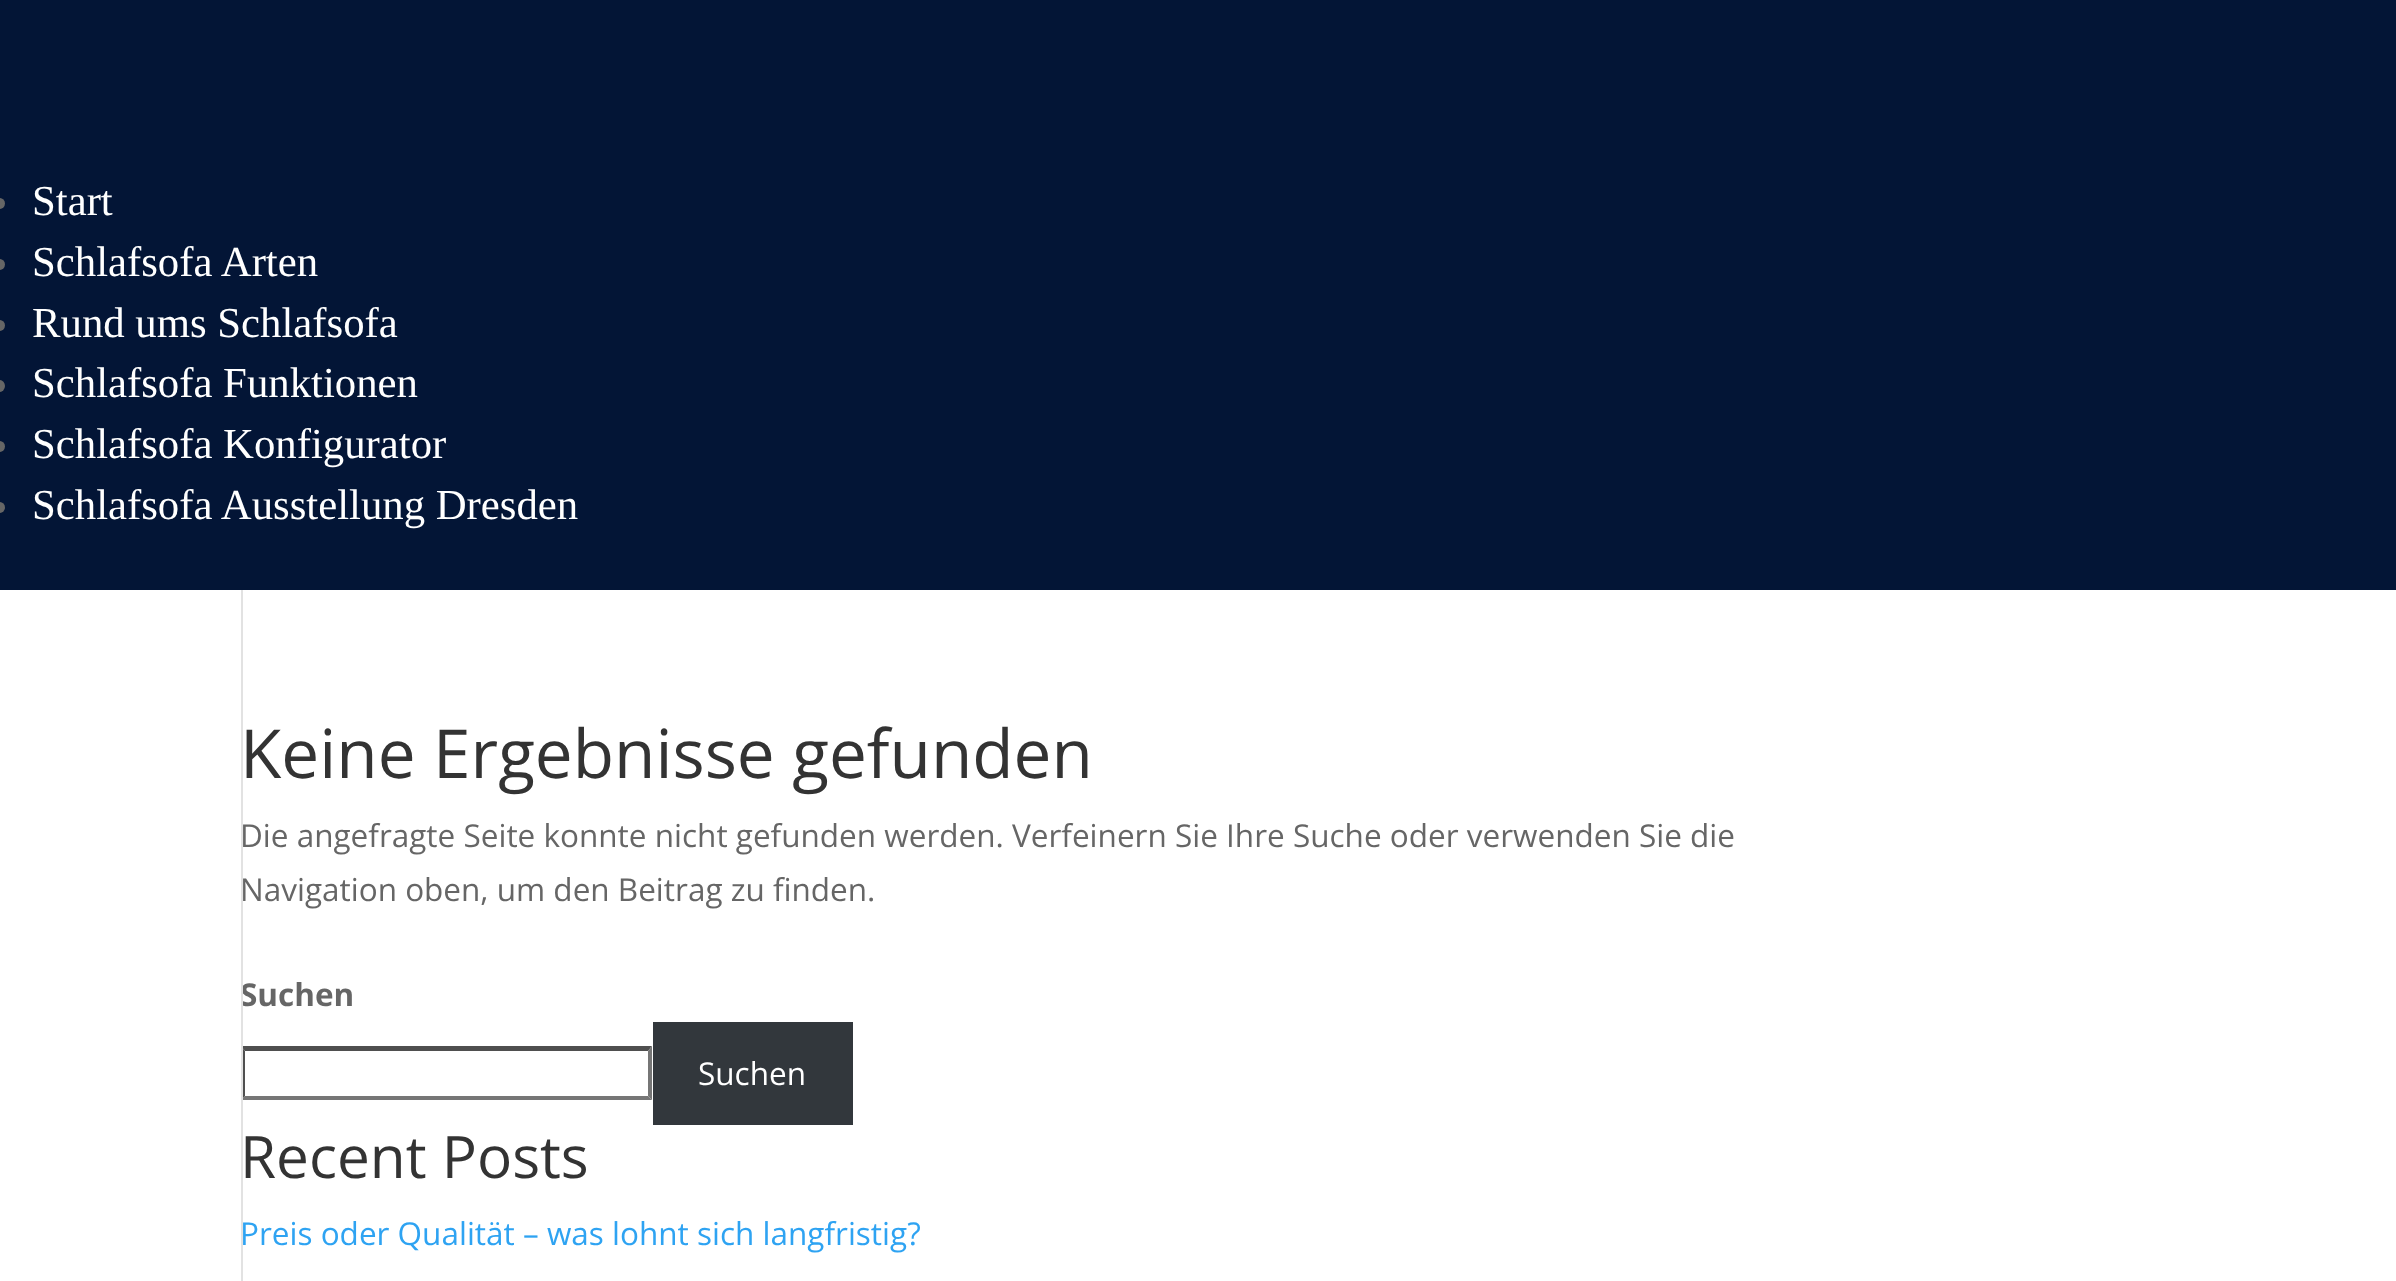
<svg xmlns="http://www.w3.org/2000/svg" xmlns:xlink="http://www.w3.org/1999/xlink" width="2396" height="1281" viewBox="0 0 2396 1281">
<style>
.cls-1{font:42.75px Liberation Serif;fill:#ffffff}
.cls-2{font:67.5px Open Sans;fill:#333333}
.cls-3{font:31.5px Open Sans;fill:#666666}
.cls-4{font:bold 31.5px Open Sans;fill:#666666}
.cls-5{font:31.5px Open Sans;fill:#ffffff}
.cls-6{font:58.5px Open Sans;fill:#333333}
.cls-7{font:31.5px Open Sans;fill:#2ea3f2}
</style>
<rect width="100%" height="100%" fill="#ffffff"/>
<rect fill="#031536" x="0" y="0" width="2396" height="590"/>
<circle fill="#666666" cx="-0.5" cy="203.5" r="5.5"/>
<circle fill="#666666" cx="-0.5" cy="264.5" r="5.5"/>
<circle fill="#666666" cx="-0.5" cy="325.5" r="5.5"/>
<rect fill="#666666" x="-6" y="380" width="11" height="12" rx="6"/>
<circle fill="#666666" cx="-0.5" cy="446.5" r="5.5"/>
<circle fill="#666666" cx="-0.5" cy="507.5" r="5.5"/>
<path fill="#4f4f4f" d="M241 1046H652L648 1051H245Z"/>
<path fill="#767676" d="M652 1046V1100L648 1096V1051Z"/>
<path fill="#767676" d="M652 1100H241L245 1096H648Z"/>
<path fill="#4f4f4f" d="M241 1100V1046L245 1051V1096Z"/>
<rect fill="#32373c" x="653" y="1022" width="200" height="103"/>
<text class="cls-1"><tspan x="32" y="215">Start</tspan><tspan x="32" y="276">Schlafsofa Arten</tspan><tspan x="32" y="337">Rund ums Schlafsofa</tspan><tspan x="32" y="397">Schlafsofa Funktionen</tspan><tspan x="32" y="458">Schlafsofa Konfigurator</tspan><tspan x="32" y="519">Schlafsofa Ausstellung Dresden</tspan></text>
<text class="cls-2" x="240" y="778">Keine Ergebnisse gefunden</text>
<text class="cls-3"><tspan x="240" y="847">Die angefragte Seite konnte nicht gefunden werden. Verfeinern Sie Ihre Suche oder verwenden Sie die</tspan><tspan x="240" y="901">Navigation oben, um den Beitrag zu finden.</tspan></text>
<text class="cls-4" x="240" y="1006">Suchen</text>
<text class="cls-5" x="698" y="1085">Suchen</text>
<text class="cls-6" x="240" y="1178">Recent Posts</text>
<text class="cls-7" x="240" y="1245">Preis oder Qualität – was lohnt sich langfristig?</text>
<rect fill="#e2e2e2" x="241" y="590" width="2" height="691"/>
</svg>
